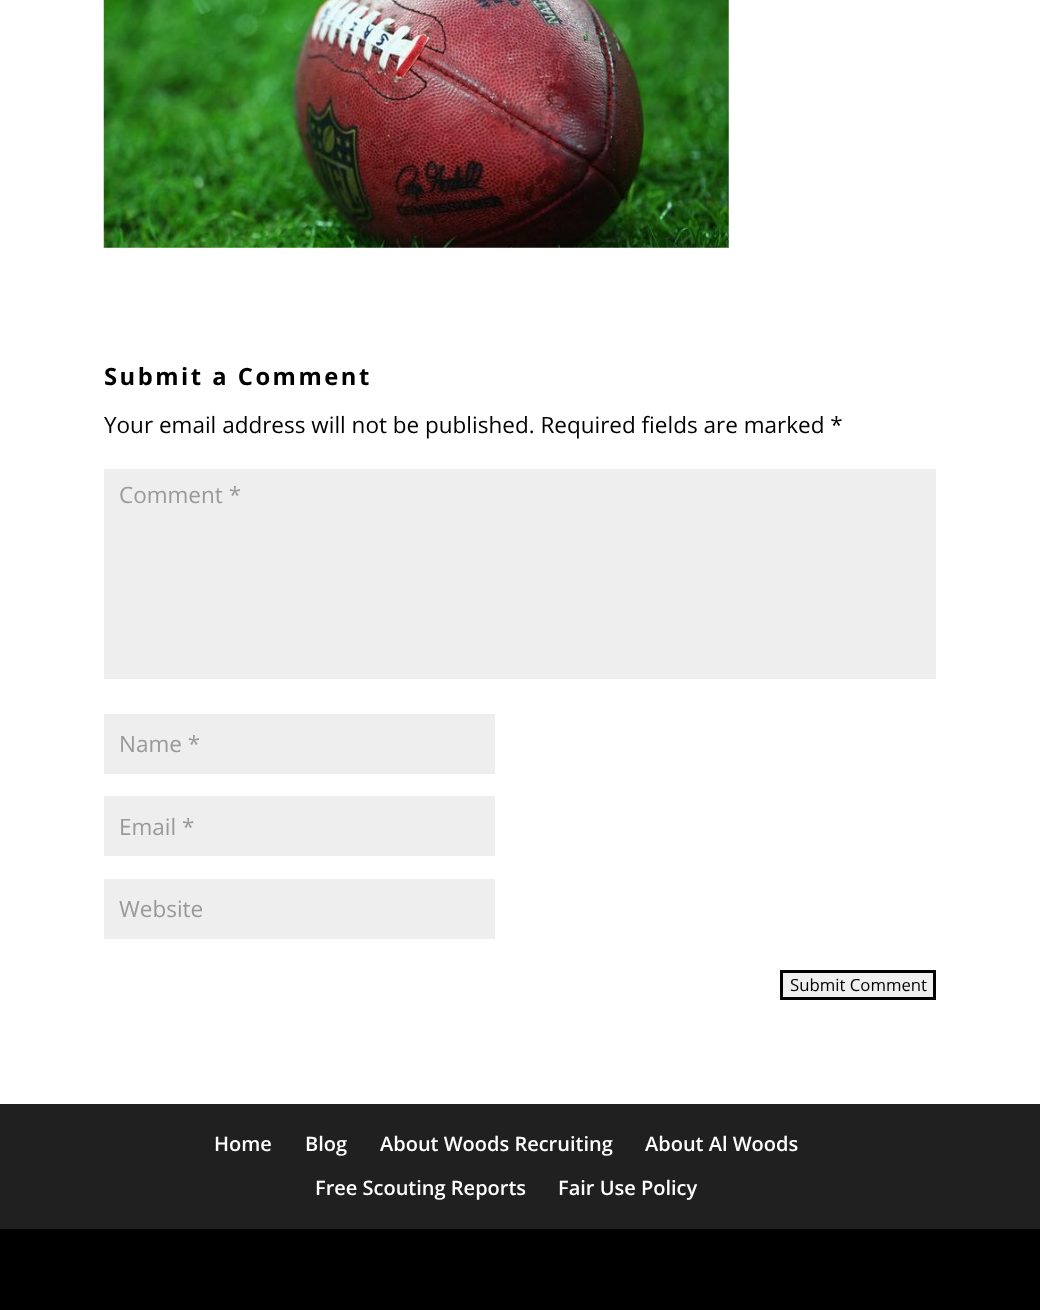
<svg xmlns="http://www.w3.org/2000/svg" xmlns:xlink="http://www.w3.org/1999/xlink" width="1040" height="1310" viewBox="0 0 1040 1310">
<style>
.cls-1{font:bold 23.75px Open Sans;letter-spacing:2.5px;fill:#000000}
.cls-2{font:22.5px Open Sans;fill:#000000}
.cls-3{font:22.5px Open Sans;fill:#999999}
.cls-4{font:16.75px Open Sans;fill:#000000}
.cls-5{font:600 20px Open Sans;fill:#ffffff}
</style>
<rect width="100%" height="100%" fill="#ffffff"/>
<image xlink:href="image0.png" x="103" y="0" width="626" height="248"/>
<rect fill="#eeeeee" x="104" y="469" width="832" height="210"/>
<rect fill="#eeeeee" x="104" y="714" width="391" height="60"/>
<rect fill="#eeeeee" x="104" y="796" width="391" height="60"/>
<rect fill="#eeeeee" x="104" y="879" width="391" height="60"/>
<rect fill="#efefef" stroke="#000000" stroke-width="3" x="781.5" y="971.5" width="153" height="27"/>
<rect fill="#202020" x="0" y="1104" width="1040" height="125"/>
<rect fill="#000000" x="0" y="1229" width="1040" height="81"/>
<text class="cls-1" x="104" y="385">Submit a Comment</text>
<text class="cls-2" x="104" y="433">Your email address will not be published. Required fields are marked *</text>
<text class="cls-3" x="119" y="503">Comment *</text>
<text class="cls-3" x="119" y="752">Name *</text>
<text class="cls-3" x="119" y="835">Email *</text>
<text class="cls-3" x="119" y="917">Website</text>
<text class="cls-4" x="790" y="991">Submit Comment</text>
<text class="cls-5" x="214" y="1151">Home</text>
<text class="cls-5" x="305" y="1151">Blog</text>
<text class="cls-5" x="380" y="1151">About Woods Recruiting</text>
<text class="cls-5" x="645" y="1151">About Al Woods</text>
<text class="cls-5" x="315" y="1195">Free Scouting Reports</text>
<text class="cls-5" x="558" y="1195">Fair Use Policy</text>
</svg>
